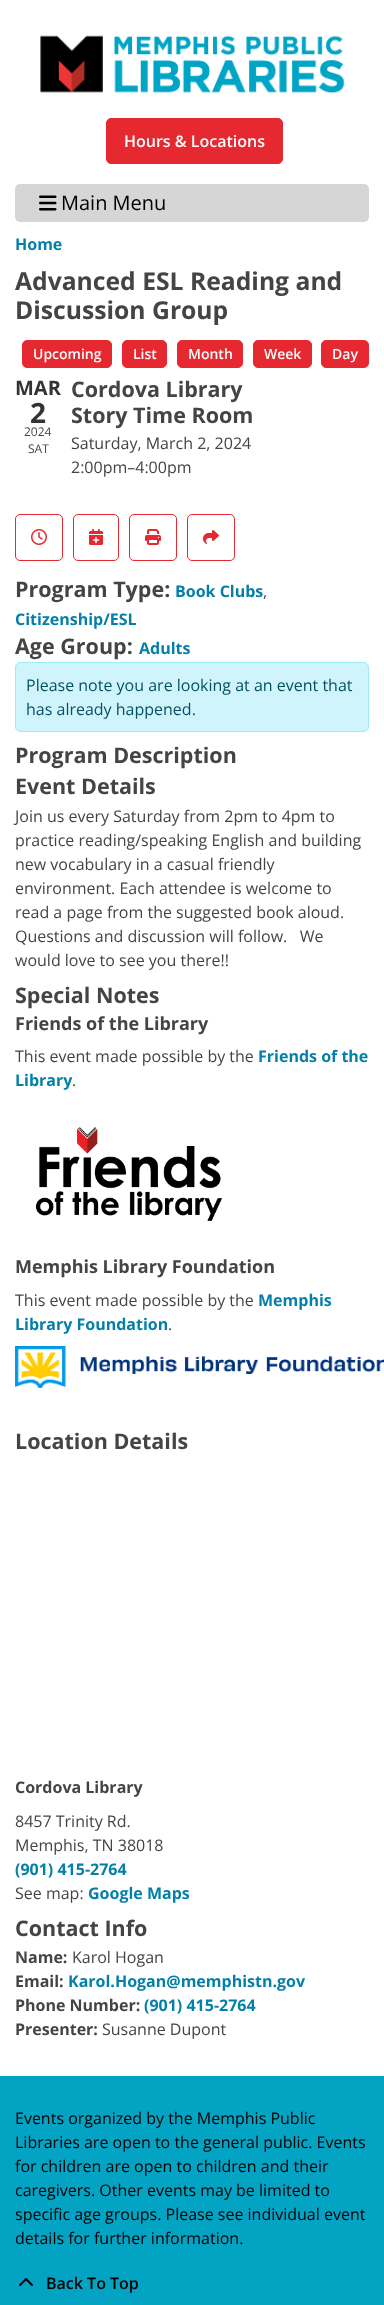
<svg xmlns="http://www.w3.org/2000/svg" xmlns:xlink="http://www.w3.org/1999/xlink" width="384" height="2305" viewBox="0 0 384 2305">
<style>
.cls-1{font:600 16px Open Sans;fill:#ffffff}
.cls-2{font:20px Open Sans;fill:#000000}
.cls-3{font:bold 16px Open Sans;fill:#037fa8}
.cls-4{font:bold 24.7px Open Sans;fill:#444444}
.cls-5{font:600 14px Open Sans;fill:#ffffff}
.cls-6{font:bold 20px Open Sans;fill:#333333}
.cls-7{font:bold 28px Open Sans;fill:#333333}
.cls-8{font:12px Open Sans;fill:#444444}
.cls-9{font:bold 21.5px Open Sans;fill:#444444}
.cls-10{font:16px Open Sans;fill:#444444}
.cls-11{font:16px Open Sans;fill:#055160}
.cls-12{font:bold 18px Open Sans;fill:#444444}
.cls-13{font:bold 16px Open Sans;fill:#444444}
.cls-14{font:16px Open Sans;fill:#000000}
.cls-15{font:600 16px Open Sans;fill:#000000}
</style>
<rect width="100%" height="100%" fill="#ffffff"/>
<image xlink:href="image0.png" x="40" y="35" width="305" height="59"/>
<rect fill="#e62831" stroke="#e62831" x="106.5" y="118.5" width="176" height="45" rx="4.5"/>
<rect fill="#d6d6d6" x="15" y="184" width="354" height="38" rx="5"/>
<image xlink:href="image1.png" x="39" y="195" width="18" height="16"/>
<rect fill="#e62831" stroke="#e62831" x="22.5" y="340.5" width="89" height="27" rx="4.5"/>
<rect fill="#e62831" stroke="#e62831" x="122.5" y="340.5" width="44" height="27" rx="4.5"/>
<rect fill="#e62831" stroke="#e62831" x="177.5" y="340.5" width="65" height="27" rx="4.5"/>
<rect fill="#e62831" stroke="#e62831" x="253.5" y="340.5" width="58" height="27" rx="4.5"/>
<rect fill="#e62831" stroke="#e62831" x="321.5" y="340.5" width="47" height="27" rx="4.5"/>
<rect fill="none" stroke="#e62831" x="15.5" y="514.5" width="47" height="46" rx="4.5"/>
<image xlink:href="image2.png" x="31" y="529" width="16" height="16"/>
<rect fill="none" stroke="#e62831" x="73.5" y="514.5" width="45" height="46" rx="4.5"/>
<image xlink:href="image3.png" x="89" y="529" width="14" height="16"/>
<rect fill="none" stroke="#e62831" x="129.5" y="514.5" width="47" height="46" rx="4.5"/>
<image xlink:href="image4.png" x="145" y="529" width="16" height="16"/>
<rect fill="none" stroke="#e62831" x="187.5" y="514.5" width="47" height="46" rx="4.5"/>
<image xlink:href="image5.png" x="203" y="530" width="16" height="14"/>
<rect fill="#cff4fc" stroke="#9eeaf9" x="15.5" y="662.5" width="353" height="69" rx="4.5"/>
<image xlink:href="image6.png" x="36" y="1127" width="186" height="94"/>
<image xlink:href="image7.png" x="15" y="1346" width="369" height="42"/>
<rect fill="#03a3c4" x="0" y="2076" width="384" height="229"/>
<image xlink:href="image8.png" x="19" y="2278" width="14" height="8"/>
<text class="cls-1" x="124" y="147">Hours &amp; Locations</text>
<text class="cls-2" x="61" y="210">Main Menu</text>
<text class="cls-3" x="15" y="250">Home</text>
<text class="cls-4"><tspan x="15" y="290">Advanced ESL Reading and</tspan><tspan x="15" y="319">Discussion Group</tspan></text>
<text class="cls-5" x="33" y="359">Upcoming</text>
<text class="cls-5" x="133" y="359">List</text>
<text class="cls-5" x="188" y="359">Month</text>
<text class="cls-5" x="264" y="359">Week</text>
<text class="cls-5" x="332" y="359">Day</text>
<text class="cls-6" x="15" y="395">MAR</text>
<text class="cls-7" x="30" y="423">2</text>
<text class="cls-8" x="24" y="436">2024</text>
<text class="cls-8" x="28" y="453">SAT</text>
<text class="cls-9"><tspan x="71" y="397">Cordova Library</tspan><tspan x="71" y="423">Story Time Room</tspan></text>
<text class="cls-10"><tspan x="71" y="449">Saturday, March 2, 2024</tspan><tspan x="71" y="473">2:00pm–4:00pm</tspan></text>
<text class="cls-9" x="15" y="597">Program Type:</text>
<text class="cls-3" x="175" y="597">Book Clubs</text>
<text class="cls-10" x="263" y="597">,</text>
<text class="cls-3" x="15" y="625">Citizenship/ESL</text>
<text class="cls-9" x="15" y="654">Age Group:</text>
<text class="cls-3" x="139" y="654">Adults</text>
<text class="cls-11"><tspan x="26" y="691">Please note you are looking at an event that</tspan><tspan x="26" y="715">has already happened.</tspan></text>
<text class="cls-9"><tspan x="15" y="763">Program Description</tspan><tspan x="15" y="794">Event Details</tspan></text>
<text class="cls-10" xml:space="preserve"><tspan x="15" y="822">Join us every Saturday from 2pm to 4pm to</tspan><tspan x="15" y="846">practice reading/speaking English and building</tspan><tspan x="15" y="870">new vocabulary in a casual friendly</tspan><tspan x="15" y="894">environment. Each attendee is welcome to</tspan><tspan x="15" y="918">read a page from the suggested book aloud.</tspan><tspan x="15" y="942">Questions and discussion will follow.   We</tspan><tspan x="15" y="966">would love to see you there!!</tspan></text>
<text class="cls-9" x="15" y="1003">Special Notes</text>
<text class="cls-12" x="15" y="1030">Friends of the Library</text>
<text class="cls-10" x="15" y="1062">This event made possible by the</text>
<text class="cls-3" x="258" y="1062">Friends of the</text>
<text class="cls-3" x="15" y="1086">Library</text>
<text class="cls-10" x="72" y="1086">.</text>
<text class="cls-12" x="15" y="1273">Memphis Library Foundation</text>
<text class="cls-10" x="15" y="1306">This event made possible by the</text>
<text class="cls-3" x="258" y="1306">Memphis</text>
<text class="cls-3" x="15" y="1330">Library Foundation</text>
<text class="cls-10" x="168" y="1330">.</text>
<text class="cls-9" x="15" y="1449">Location Details</text>
<text class="cls-13" x="15" y="1793">Cordova Library</text>
<text class="cls-10"><tspan x="15" y="1827">8457 Trinity Rd.</tspan><tspan x="15" y="1851">Memphis, TN 38018</tspan></text>
<text class="cls-3" x="15" y="1875">(901) 415-2764</text>
<text class="cls-10" x="15" y="1899">See map:</text>
<text class="cls-3" x="88" y="1899">Google Maps</text>
<text class="cls-9" x="15" y="1936">Contact Info</text>
<text class="cls-13" x="15" y="1963">Name:</text>
<text class="cls-10" x="72" y="1963">Karol Hogan</text>
<text class="cls-13" x="15" y="1987">Email:</text>
<text class="cls-3" x="68" y="1987">Karol.Hogan@memphistn.gov</text>
<text class="cls-13" x="15" y="2011">Phone Number:</text>
<text class="cls-3" x="144" y="2011">(901) 415-2764</text>
<text class="cls-13" x="15" y="2035">Presenter:</text>
<text class="cls-10" x="102" y="2035">Susanne Dupont</text>
<text class="cls-14"><tspan x="15" y="2124">Events organized by the Memphis Public</tspan><tspan x="15" y="2148">Libraries are open to the general public. Events</tspan><tspan x="15" y="2172">for children are open to children and their</tspan><tspan x="15" y="2196">caregivers. Other events may be limited to</tspan><tspan x="15" y="2220">specific age groups. Please see individual event</tspan><tspan x="15" y="2244">details for further information.</tspan></text>
<text class="cls-15" x="46" y="2289">Back To Top</text>
</svg>
